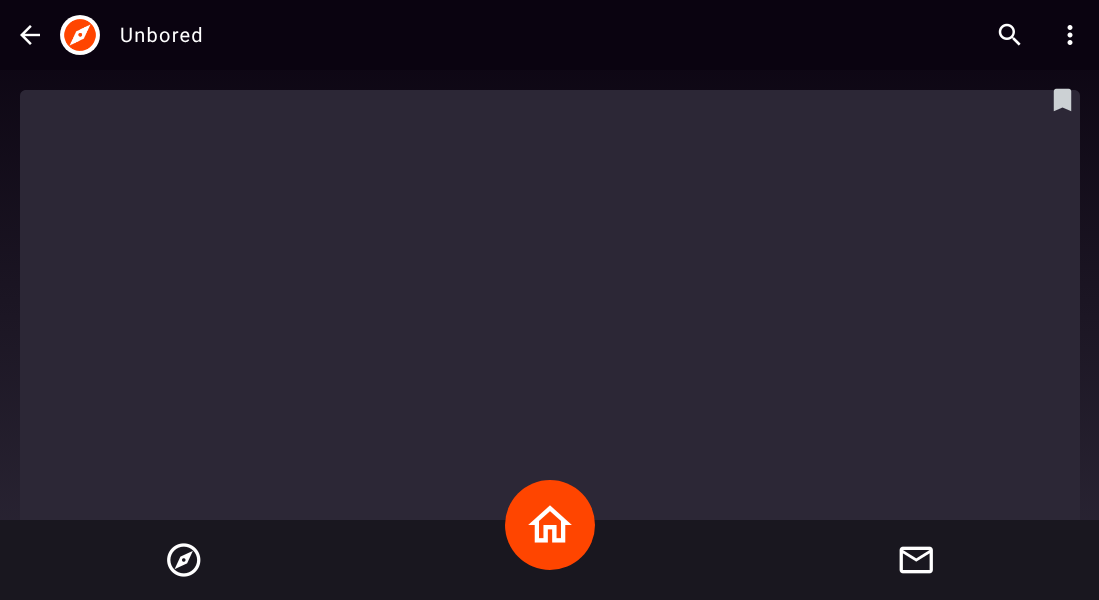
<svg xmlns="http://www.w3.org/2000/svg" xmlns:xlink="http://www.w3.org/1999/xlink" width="1099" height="600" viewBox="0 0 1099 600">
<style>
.cls-1{font:20px Roboto;letter-spacing:1.25px;fill:#ffffff}
</style>
<defs>
<linearGradient id="g1" gradientUnits="userSpaceOnUse" x1="550" y1="0" x2="550" y2="600"><stop offset="0" stop-color="#0a0310"/><stop offset="1" stop-color="#2c2736"/></linearGradient>
</defs>
<rect width="100%" height="100%" fill="#ffffff"/>
<rect fill="url(#g1)" x="0" y="70" width="1099" height="450"/>
<rect fill="#0a0310" x="0" y="0" width="1099" height="70"/>
<image xlink:href="image0.png" x="20" y="25" width="20" height="20"/>
<image xlink:href="image1.png" x="60" y="15" width="40" height="40"/>
<image xlink:href="image2.png" x="998" y="23" width="23" height="23"/>
<image xlink:href="image3.png" x="1067" y="25" width="6" height="20"/>
<path fill="#2c2736" d="M26 90H1074C1077.5 90 1080 92.5 1080 96V520H20V96C20 92.5 22.5 90 26 90Z"/>
<image xlink:href="image4.png" x="1053" y="88" width="19" height="24"/>
<rect fill="#19171f" x="0" y="520" width="1099" height="80"/>
<image xlink:href="image5.png" x="167" y="543" width="34" height="34"/>
<circle fill="#ff4500" cx="550" cy="525" r="45"/>
<image xlink:href="image6.png" x="528" y="505" width="44" height="38"/>
<image xlink:href="image7.png" x="899" y="546" width="34" height="28"/>
<text class="cls-1" x="120" y="42">Unbored</text>
</svg>
